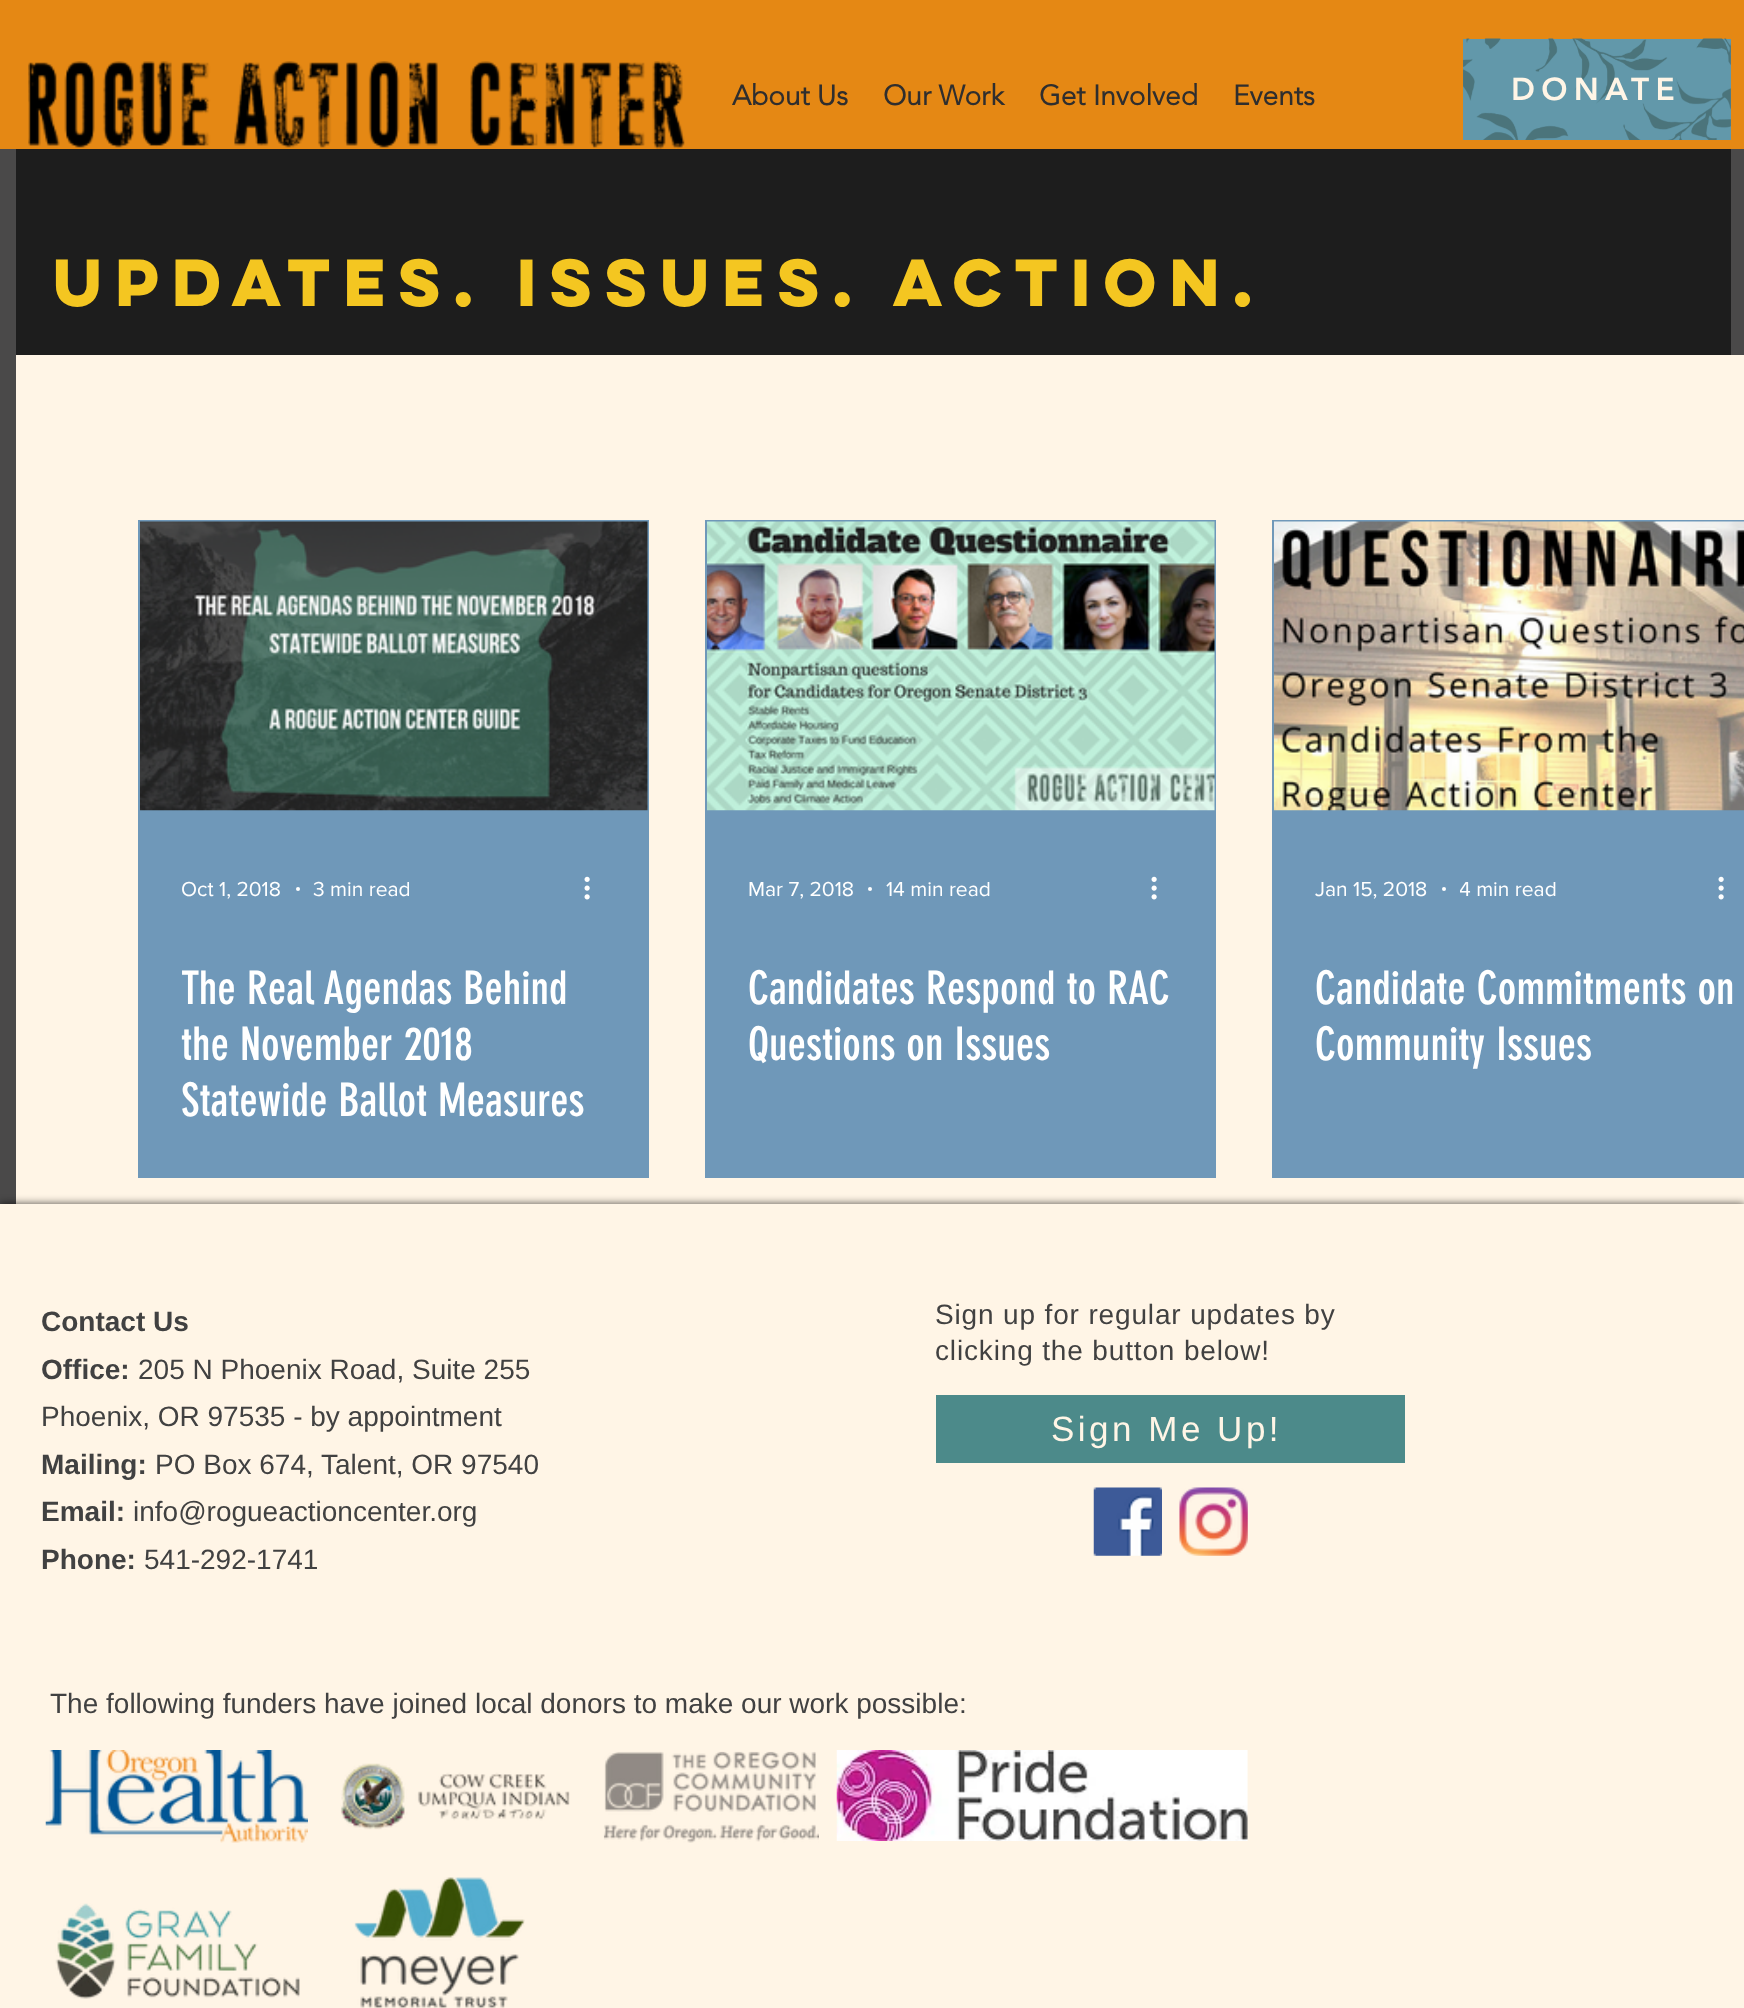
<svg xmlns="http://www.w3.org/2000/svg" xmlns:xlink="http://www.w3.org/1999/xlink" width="1744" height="2008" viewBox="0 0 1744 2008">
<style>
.cls-1{font:bold 28px 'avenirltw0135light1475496';fill:#2f2e2e}
.cls-2{font:900 31.5px 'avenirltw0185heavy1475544';letter-spacing:6.25px;fill:#fff5e6}
.cls-3{font:bold 59.5px 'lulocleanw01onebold';fill:#f4c621}
.cls-4{font:21px 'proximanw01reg';fill:#ffffff}
.cls-5{font:45.5px 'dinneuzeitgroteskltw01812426';fill:#ffffff}
.cls-6{font:bold 28px Liberation Sans;fill:#414141}
.cls-7{font:28px Liberation Sans;fill:#414141}
.cls-8{font:28px Liberation Sans;letter-spacing:0.85px;fill:#414141}
.cls-9{font:35px Liberation Sans;letter-spacing:3.5px;fill:#fff5e6}
</style>
<defs>
<clipPath id="clip1"><rect x="1460" y="877" width="98" height="23"/></clipPath>
</defs>
<rect width="100%" height="100%" fill="#4a4949"/>
<rect fill="#e58814" x="0" y="0" width="1744" height="149"/>
<image xlink:href="image0.png" x="28" y="61" width="657" height="88"/>
<rect fill="#6298aa" x="1463" y="39" width="268" height="101"/>
<image xlink:href="image1.png" x="1463" y="38" width="268" height="102"/>
<rect fill="#1d1d1d" x="16" y="149" width="1715" height="206"/>
<rect fill="#fff5e6" x="16" y="355" width="1728" height="849"/>
<rect fill="#6f98b9" x="138" y="520" width="511" height="658"/>
<image xlink:href="image2.png" x="140" y="521" width="508" height="290"/>
<circle fill="#ffffff" cx="298" cy="889" r="2"/>
<image xlink:href="image3.png" x="584" y="876" width="6" height="24"/>
<rect fill="#6f98b9" x="705" y="520" width="511" height="658"/>
<image xlink:href="image4.png" x="707" y="521" width="508" height="290"/>
<circle fill="#ffffff" cx="870" cy="889" r="2"/>
<image xlink:href="image3.png" x="1151" y="876" width="6" height="24"/>
<rect fill="#6f98b9" x="1272" y="520" width="472" height="658"/>
<image xlink:href="image5.png" x="1274" y="521" width="470" height="290"/>
<circle fill="#ffffff" cx="1444" cy="889" r="2"/>
<image xlink:href="image3.png" x="1718" y="876" width="6" height="24"/>
<rect fill="#000000" fill-opacity="0.7" filter="blur(4.5px)" x="0" y="1204" width="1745" height="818"/>
<rect fill="#fff5e6" x="0" y="1204" width="1744" height="804"/>
<rect fill="#4c8a8a" x="936" y="1395" width="469" height="68"/>
<image xlink:href="image6.png" x="1093" y="1487" width="69" height="69"/>
<image xlink:href="image7.png" x="1179" y="1487" width="69" height="69"/>
<image xlink:href="image8.png" x="45" y="1750" width="263" height="93"/>
<image xlink:href="image9.png" x="340" y="1763" width="230" height="67"/>
<image xlink:href="image10.png" x="603" y="1751" width="216" height="92"/>
<image xlink:href="image11.png" x="836" y="1750" width="412" height="91"/>
<image xlink:href="image12.png" x="55" y="1903" width="245" height="96"/>
<image xlink:href="image13.png" x="354" y="1877" width="171" height="131"/>
<text class="cls-1" x="732" y="105">About Us</text>
<text class="cls-1" x="883" y="105">Our Work</text>
<text class="cls-1" x="1039" y="105">Get Involved</text>
<text class="cls-1" x="1233" y="105">Events</text>
<text class="cls-2" x="1511" y="100">DONATE</text>
<text class="cls-3" x="53" y="306">Updates. issues. action.</text>
<text class="cls-4" x="181" y="896">Oct 1, 2018</text>
<text class="cls-4" x="313" y="896">3 min read</text>
<text class="cls-5"><tspan x="181" y="1004">The Real Agendas Behind</tspan><tspan x="181" y="1060">the November 2018</tspan><tspan x="181" y="1116">Statewide Ballot Measures</tspan></text>
<text class="cls-4" x="748" y="896">Mar 7, 2018</text>
<text class="cls-4" x="886" y="896">14 min read</text>
<text class="cls-5"><tspan x="748" y="1004">Candidates Respond to RAC</tspan><tspan x="748" y="1060">Questions on Issues</tspan></text>
<text class="cls-4" x="1315" y="896">Jan 15, 2018</text>
<g clip-path="url(#clip1)">
<text class="cls-4" x="1459" y="896">4 min read</text>
</g>
<text class="cls-5"><tspan x="1315" y="1004">Candidate Commitments on</tspan><tspan x="1315" y="1060">Community Issues</tspan></text>
<text class="cls-6"><tspan x="41" y="1331">Contact Us</tspan><tspan x="41" y="1379">Office:</tspan></text>
<text class="cls-7" x="138" y="1379">205 N Phoenix Road, Suite 255</text>
<text class="cls-7" x="41" y="1426">Phoenix, OR 97535 - by appointment</text>
<text class="cls-6" x="41" y="1474">Mailing:</text>
<text class="cls-7" x="155" y="1474">PO Box 674, Talent, OR 97540</text>
<text class="cls-6" x="41" y="1521">Email:</text>
<text class="cls-7" x="133" y="1521">info@rogueactioncenter.org</text>
<text class="cls-6" x="41" y="1569">Phone:</text>
<text class="cls-7" x="144" y="1569">541-292-1741</text>
<text class="cls-8"><tspan x="935" y="1324">Sign up for regular updates by</tspan><tspan x="935" y="1360">clicking the button below!</tspan></text>
<text class="cls-9" x="1051" y="1441">Sign Me Up!</text>
<text class="cls-7" x="50" y="1713">The following funders have joined local donors to make our work possible:</text>
</svg>
